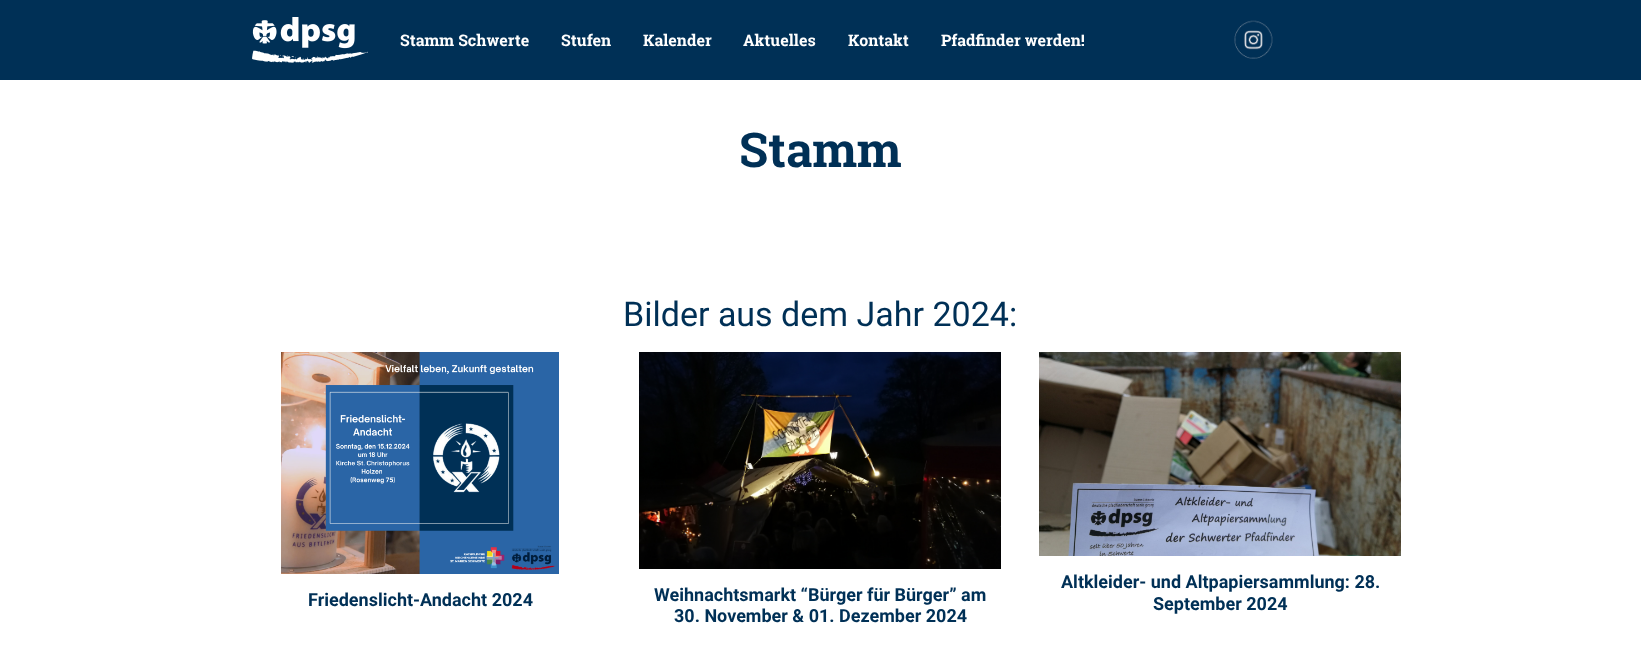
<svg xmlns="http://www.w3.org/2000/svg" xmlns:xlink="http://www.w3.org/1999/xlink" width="1641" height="664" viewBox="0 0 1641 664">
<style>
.cls-1{font:bold 16px Roboto Slab;fill:#fefefe}
.cls-2{font:bold 48px Roboto Slab;fill:#003056}
.cls-3{font:34px Roboto;fill:#003056}
.cls-4{font:bold 18px Roboto;fill:#003056}
</style>
<rect width="100%" height="100%" fill="#ffffff"/>
<rect fill="#003056" x="0" y="0" width="1641" height="80"/>
<image xlink:href="image0.png" x="252" y="17" width="116" height="46"/>
<image xlink:href="image1.png" x="1234" y="20" width="39" height="39"/>
<image xlink:href="image2.png" x="281" y="352" width="278" height="222"/>
<image xlink:href="image3.png" x="639" y="352" width="362" height="217"/>
<image xlink:href="image4.png" x="1039" y="352" width="362" height="204"/>
<text class="cls-1" x="400" y="46">Stamm Schwerte</text>
<text class="cls-1" x="561" y="46">Stufen</text>
<text class="cls-1" x="643" y="46">Kalender</text>
<text class="cls-1" x="743" y="46">Aktuelles</text>
<text class="cls-1" x="848" y="46">Kontakt</text>
<text class="cls-1" x="941" y="46">Pfadfinder werden!</text>
<text class="cls-2" x="739" y="167">Stamm</text>
<text class="cls-3" x="623" y="326">Bilder aus dem Jahr 2024:</text>
<text class="cls-4" x="308" y="606">Friedenslicht-Andacht 2024</text>
<text class="cls-4" x="654" y="601">Weihnachtsmarkt “Bürger für Bürger” am</text>
<text class="cls-4" x="674" y="622">30. November &amp; 01. Dezember 2024</text>
<text class="cls-4" x="1061" y="588">Altkleider- und Altpapiersammlung: 28.</text>
<text class="cls-4" x="1153" y="610">September 2024</text>
</svg>
